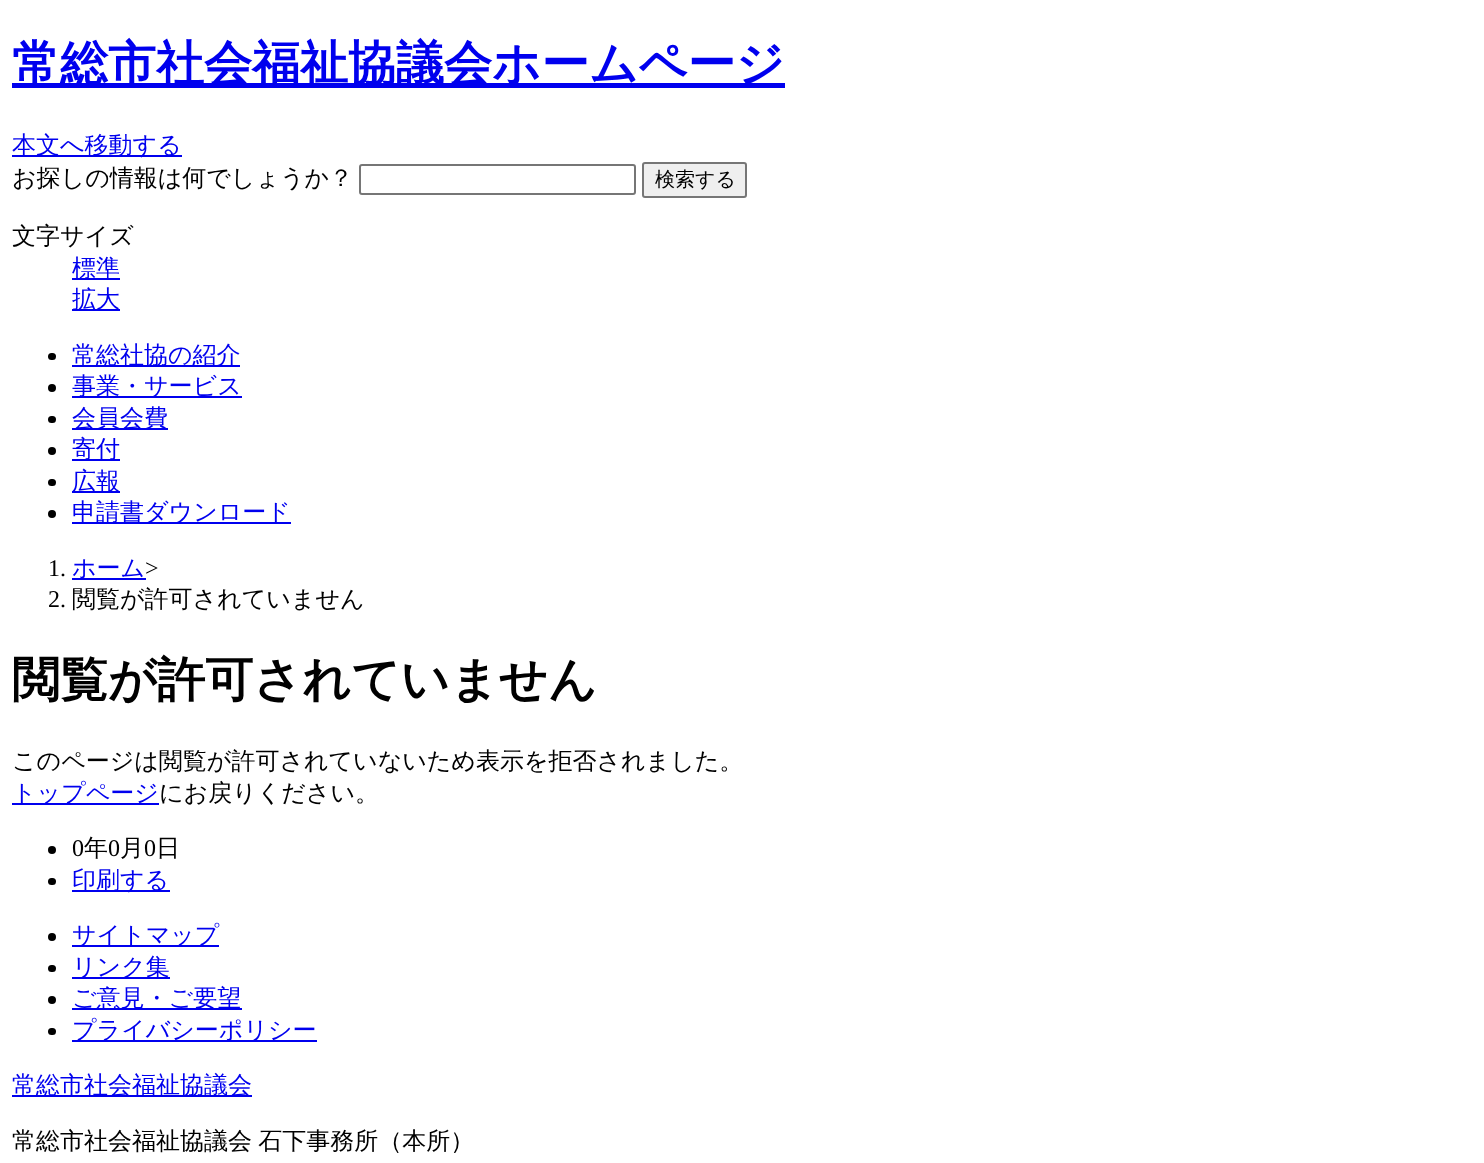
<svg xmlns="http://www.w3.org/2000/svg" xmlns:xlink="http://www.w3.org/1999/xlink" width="1484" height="1163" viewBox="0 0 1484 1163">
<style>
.cls-1{font:bold 48px WenQuanYi Zen Hei;fill:#0000ee}
.cls-2{font:500 24px WenQuanYi Zen Hei;fill:#0000ee}
.cls-3{font:500 24px WenQuanYi Zen Hei;fill:#000000}
.cls-4{font:500 20px WenQuanYi Zen Hei;fill:#000000}
.cls-5{font:24px Liberation Serif;fill:#000000}
.cls-6{font:bold 48px WenQuanYi Zen Hei;fill:#000000}
</style>
<rect width="100%" height="100%" fill="#ffffff"/>
<rect fill="#0000ee" x="12" y="83" width="773" height="5"/>
<rect fill="#0000ee" x="12" y="155" width="170" height="2"/>
<rect fill="none" stroke="#767676" stroke-width="2" x="360" y="165" width="275" height="29" rx="2"/>
<rect fill="#efefef" stroke="#767676" stroke-width="2" x="643" y="163" width="103" height="34" rx="2"/>
<rect fill="#0000ee" x="72" y="278" width="48" height="2"/>
<rect fill="#0000ee" x="72" y="309" width="48" height="2"/>
<rect fill="#000000" x="48" y="353" width="8" height="7" rx="3.5"/>
<rect fill="#0000ee" x="72" y="365" width="168" height="2"/>
<circle fill="#000000" cx="52" cy="388" r="4"/>
<rect fill="#0000ee" x="72" y="396" width="170" height="2"/>
<rect fill="#000000" x="48" y="416" width="8" height="7" rx="3.5"/>
<rect fill="#0000ee" x="72" y="428" width="96" height="2"/>
<circle fill="#000000" cx="52" cy="451" r="4"/>
<rect fill="#0000ee" x="72" y="459" width="48" height="2"/>
<rect fill="#000000" x="48" y="479" width="8" height="7" rx="3.5"/>
<rect fill="#0000ee" x="72" y="491" width="48" height="2"/>
<circle fill="#000000" cx="52" cy="514" r="4"/>
<rect fill="#0000ee" x="72" y="522" width="219" height="2"/>
<rect fill="#0000ee" x="72" y="578" width="74" height="2"/>
<rect fill="#0000ee" x="12" y="803" width="147" height="2"/>
<circle fill="#000000" cx="52" cy="850" r="4"/>
<rect fill="#000000" x="48" y="878" width="8" height="7" rx="3.5"/>
<rect fill="#0000ee" x="72" y="890" width="98" height="2"/>
<circle fill="#000000" cx="52" cy="937" r="4"/>
<rect fill="#0000ee" x="72" y="945" width="147" height="2"/>
<rect fill="#000000" x="48" y="965" width="8" height="7" rx="3.5"/>
<rect fill="#0000ee" x="72" y="977" width="98" height="2"/>
<circle fill="#000000" cx="52" cy="1000" r="4"/>
<rect fill="#0000ee" x="72" y="1008" width="170" height="2"/>
<rect fill="#000000" x="48" y="1028" width="8" height="7" rx="3.5"/>
<rect fill="#0000ee" x="72" y="1040" width="245" height="2"/>
<rect fill="#0000ee" x="12" y="1095" width="240" height="2"/>
<text class="cls-1" x="12" y="80">常総市社会福祉協議会ホームページ</text>
<text class="cls-2" x="12" y="153">本文へ移動する</text>
<text class="cls-3" x="12" y="186">お探しの情報は何でしょうか？</text>
<text class="cls-4" x="655" y="186">検索する</text>
<text class="cls-3" x="12" y="244">文字サイズ</text>
<text class="cls-2"><tspan x="72" y="276">標準</tspan><tspan x="72" y="307">拡大</tspan></text>
<text class="cls-2"><tspan x="72" y="363">常総社協の紹介</tspan><tspan x="72" y="394">事業・サービス</tspan><tspan x="72" y="426">会員会費</tspan><tspan x="72" y="457">寄付</tspan><tspan x="72" y="489">広報</tspan><tspan x="72" y="520">申請書ダウンロード</tspan></text>
<text class="cls-5" x="48" y="576">1.</text>
<text class="cls-2" x="72" y="576">ホーム</text>
<text class="cls-5" x="145" y="576">&gt;</text>
<text class="cls-5" x="48" y="607">2.</text>
<text class="cls-3" x="72" y="607">閲覧が許可されていません</text>
<text class="cls-6" x="12" y="696">閲覧が許可されていません</text>
<text class="cls-3" x="12" y="769">このページは閲覧が許可されていないため表示を拒否されました。</text>
<text class="cls-2" x="12" y="801">トップページ</text>
<text class="cls-3" x="159" y="801">にお戻りください。</text>
<text class="cls-5" x="72" y="856">0</text>
<text class="cls-3" x="84" y="856">年</text>
<text class="cls-5" x="108" y="856">0</text>
<text class="cls-3" x="120" y="856">月</text>
<text class="cls-5" x="144" y="856">0</text>
<text class="cls-3" x="156" y="856">日</text>
<text class="cls-2" x="72" y="888">印刷する</text>
<text class="cls-2"><tspan x="72" y="943">サイトマップ</tspan><tspan x="72" y="975">リンク集</tspan><tspan x="72" y="1006">ご意見・ご要望</tspan><tspan x="72" y="1038">プライバシーポリシー</tspan></text>
<text class="cls-2" x="12" y="1093">常総市社会福祉協議会</text>
<text class="cls-3" x="12" y="1149" word-spacing="-1">常総市社会福祉協議会 石下事務所（本所）</text>
</svg>
